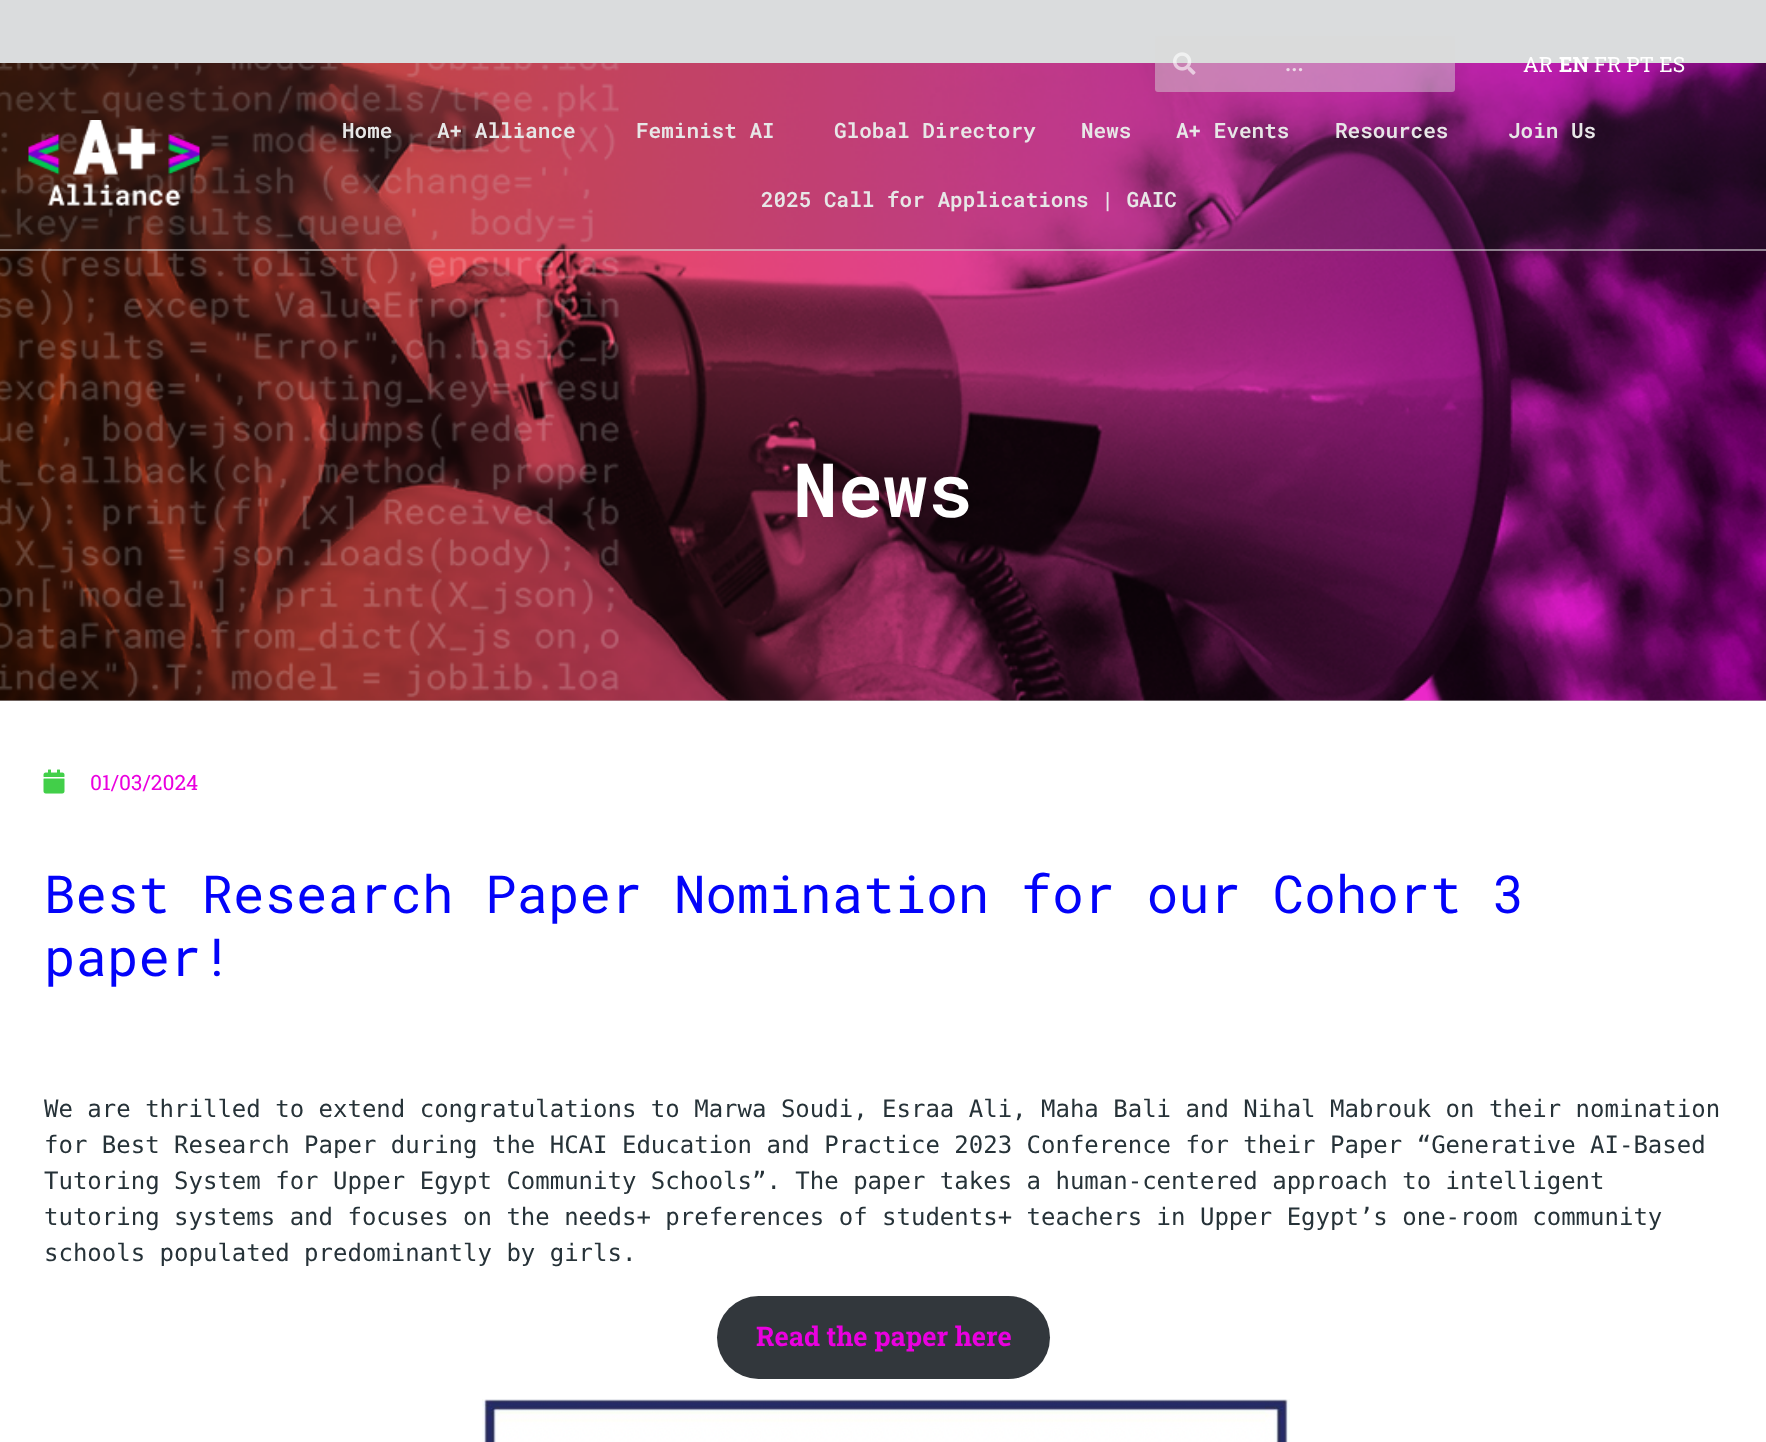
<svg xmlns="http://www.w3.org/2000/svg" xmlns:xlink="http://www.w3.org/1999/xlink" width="1766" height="1442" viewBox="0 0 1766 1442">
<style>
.cls-1{font:600 22px Roboto;fill:#eddae8}
.cls-2{font:21px Roboto Slab;fill:#ffffff}
.cls-3{font:bold 21px Roboto Slab;fill:#ffffff}
.cls-4{font:600 21px Roboto Mono;fill:#e7e7e7}
.cls-5{font:600 75px Roboto Mono;fill:#ffffff}
.cls-6{font:21px Roboto Slab;fill:#ea00df}
.cls-7{font:52.5px Roboto Mono;fill:#0303f9}
.cls-8{font:24px DejaVu Sans Mono;fill:#263238}
.cls-9{font:bold 27px Roboto Slab;fill:#ea00df}
</style>
<rect width="100%" height="100%" fill="#ffffff"/>
<rect fill="#bbbbbb" x="0" y="700" width="1766" height="1"/>
<image xlink:href="image2.png" x="0" y="63" width="1766" height="638"/>
<rect fill="#263238" fill-opacity="0.17" x="0" y="0" width="1766" height="251"/>
<rect fill="#eaeaea" fill-opacity="0.52" x="0" y="249" width="1766" height="2"/>
<rect fill="#dbdbdb" fill-opacity="0.46" x="1155" y="36" width="300" height="56" rx="3"/>
<image xlink:href="image0.png" x="1173" y="52" width="23" height="23"/>
<image xlink:href="image1.png" x="28" y="120" width="172" height="86"/>
<image xlink:href="image3.png" x="43" y="769" width="22" height="25"/>
<rect fill="#32373c" x="717" y="1296" width="333" height="83" rx="41.5"/>
<image xlink:href="image4.png" x="482" y="1399" width="808" height="43"/>
<text class="cls-1" x="1285" y="71">...</text>
<text class="cls-2" x="1523" y="72">AR</text>
<text class="cls-3" x="1559" y="72">EN</text>
<text class="cls-2" x="1594" y="72">FR PT ES</text>
<text class="cls-4" x="342" y="138">Home</text>
<text class="cls-4" x="437" y="138">A+ Alliance</text>
<text class="cls-4" x="636" y="138">Feminist AI</text>
<text class="cls-4" x="834" y="138">Global Directory</text>
<text class="cls-4" x="1081" y="138">News</text>
<text class="cls-4" x="1176" y="138">A+ Events</text>
<text class="cls-4" x="1335" y="138">Resources</text>
<text class="cls-4" x="1508" y="138">Join Us</text>
<text class="cls-4" x="761" y="207">2025 Call for Applications | GAIC</text>
<text class="cls-5" x="793" y="517">News</text>
<text class="cls-6" x="90" y="790">01/03/2024</text>
<text class="cls-7"><tspan x="44" y="913">Best Research Paper Nomination for our Cohort 3</tspan><tspan x="44" y="976">paper!</tspan></text>
<text class="cls-8"><tspan x="44" y="1117">We are thrilled to extend congratulations to Marwa Soudi, Esraa Ali, Maha Bali and Nihal Mabrouk on their nomination</tspan><tspan x="44" y="1153">for Best Research Paper during the HCAI Education and Practice 2023 Conference for their Paper “Generative AI-Based</tspan><tspan x="44" y="1189">Tutoring System for Upper Egypt Community Schools”. The paper takes a human-centered approach to intelligent</tspan><tspan x="44" y="1225">tutoring systems and focuses on the needs+ preferences of students+ teachers in Upper Egypt’s one-room community</tspan><tspan x="44" y="1261">schools populated predominantly by girls.</tspan></text>
<text class="cls-9" x="756" y="1346">Read the paper here</text>
</svg>
